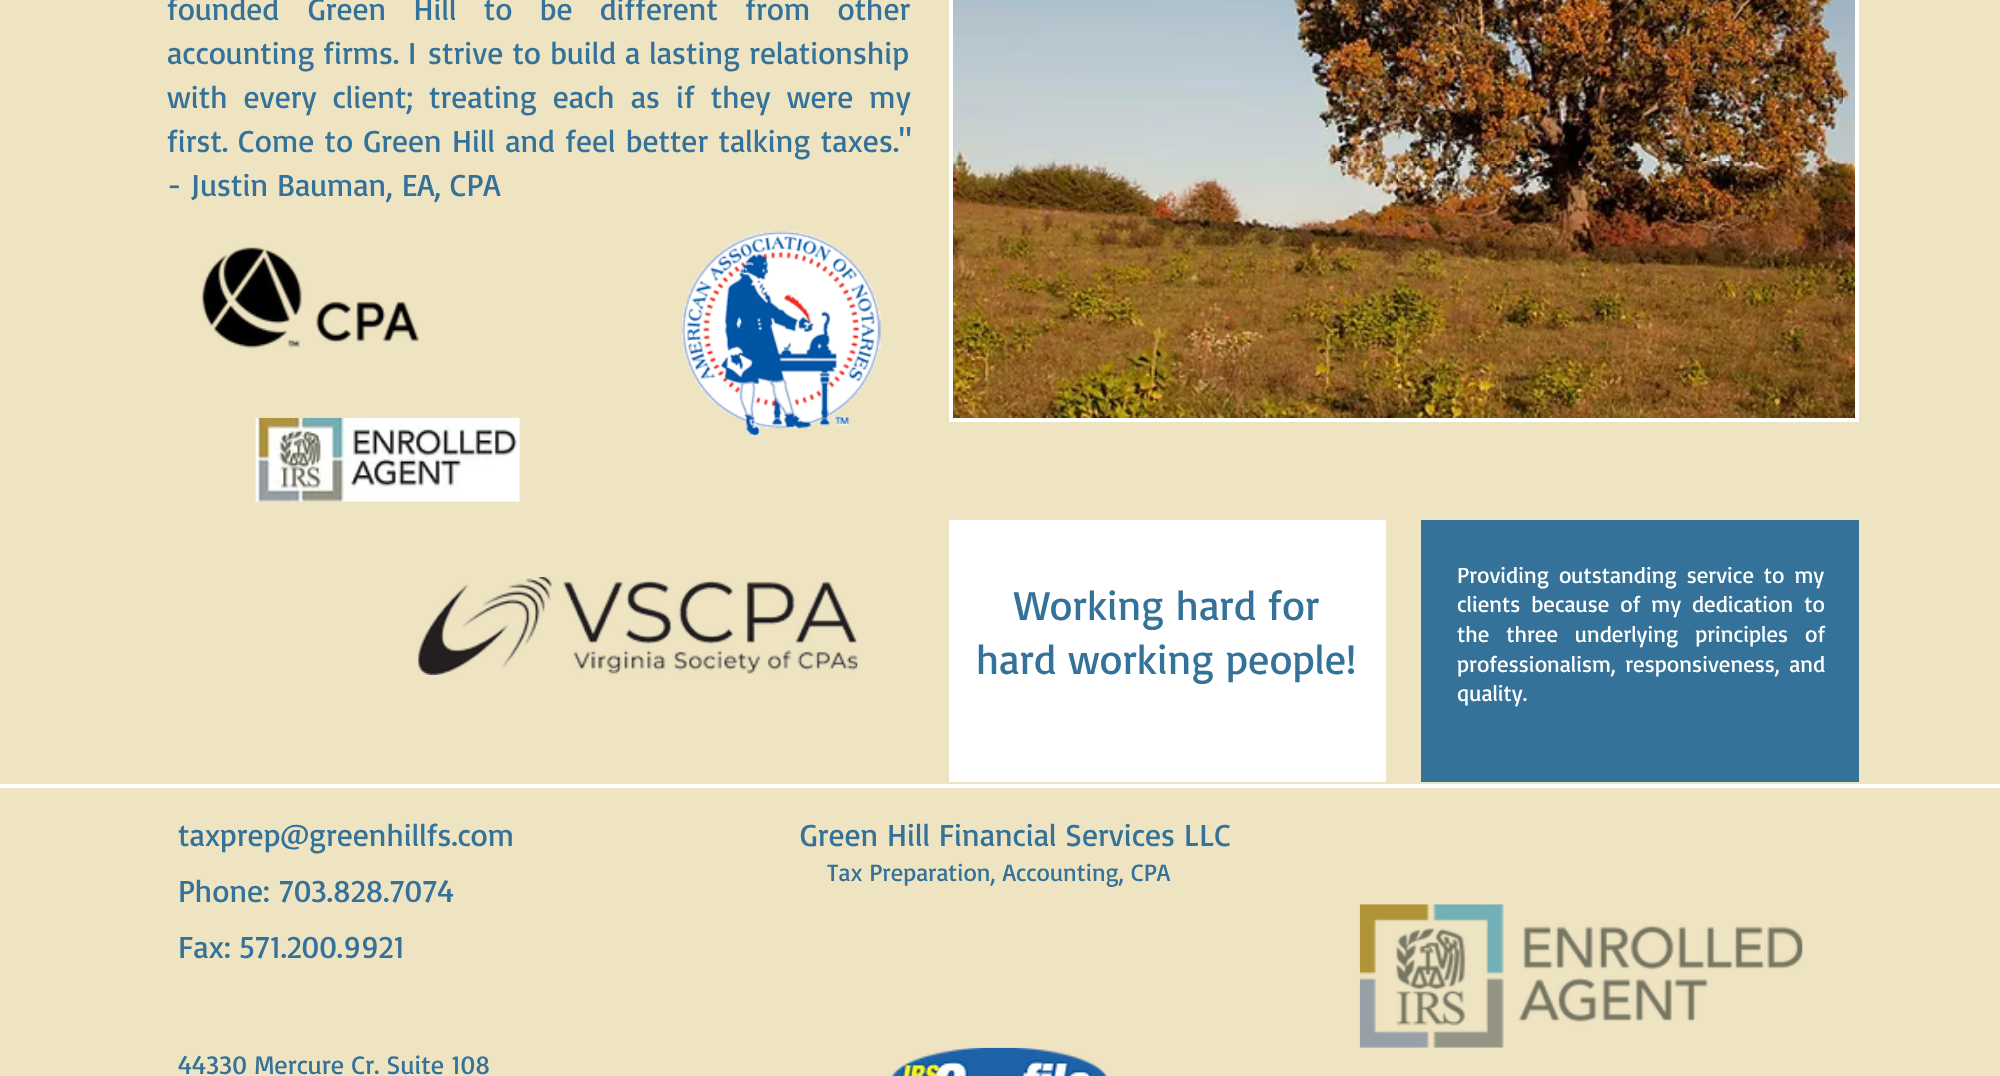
<svg xmlns="http://www.w3.org/2000/svg" xmlns:xlink="http://www.w3.org/1999/xlink" width="2000" height="1076" viewBox="0 0 2000 1076">
<style>
.cls-1{font:31.5px Basic;fill:#357299}
.cls-2{font:42px Basic;fill:#357299}
.cls-3{font:22.75px Basic;fill:#ffffff}
.cls-4{font:24.5px Basic;fill:#357299}
.cls-5{font:26.25px Basic;fill:#357299}
</style>
<rect width="100%" height="100%" fill="#efe4c2"/>
<image xlink:href="image0.png" x="953" y="0" width="902" height="418"/>
<rect fill="none" stroke="#ffffff" stroke-width="4" x="951" y="-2" width="906" height="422"/>
<image xlink:href="image1.png" x="201" y="247" width="218" height="102"/>
<image xlink:href="image2.png" x="682" y="231" width="199" height="206"/>
<image xlink:href="image3.png" x="255" y="417" width="265" height="85"/>
<image xlink:href="image4.png" x="418" y="577" width="440" height="98"/>
<rect fill="#ffffff" x="949" y="520" width="437" height="262"/>
<rect fill="#357299" x="1421" y="520" width="438" height="262"/>
<rect fill="#ffffff" x="0" y="784" width="2000" height="4"/>
<image xlink:href="image5.png" x="1359" y="904" width="444" height="144"/>
<image xlink:href="image6.png" x="890" y="1047" width="218" height="29"/>
<text class="cls-1" x="167" y="20">founded</text>
<text class="cls-1" x="308" y="20" word-spacing="18.5">Green Hill to be different from other</text>
<text class="cls-1" x="167" y="64">accounting firms. I</text>
<text class="cls-1" x="428" y="64" word-spacing="0.25">strive to build a lasting relationship</text>
<text class="cls-1"><tspan x="167" y="108" word-spacing="7.25">with every client; treating each as if they were my</tspan><tspan x="167" y="152" word-spacing="1.5">first. Come to Green Hill and feel better talking taxes."</tspan><tspan x="167" y="196">- Justin Bauman, EA, CPA</tspan></text>
<text class="cls-2" x="1014" y="620">Working hard for</text>
<text class="cls-2" x="976" y="674">hard working people!</text>
<text class="cls-3"><tspan x="1457" y="583" word-spacing="3.5">Providing outstanding service to my</tspan><tspan x="1457" y="612" word-spacing="4.5">clients because of my dedication to</tspan><tspan x="1457" y="642" word-spacing="10.5">the three underlying principles of</tspan><tspan x="1457" y="672" word-spacing="3">professionalism, responsiveness, and</tspan><tspan x="1457" y="701">quality.</tspan></text>
<text class="cls-1"><tspan x="178" y="846">taxprep@greenhillfs.com</tspan><tspan x="178" y="902">Phone: 703.828.7074</tspan><tspan x="178" y="958">Fax: 571.200.9921</tspan></text>
<text class="cls-1" x="800" y="846">Green Hill Financial Services LLC</text>
<text class="cls-4" x="827" y="881">Tax Preparation, Accounting, CPA</text>
<text class="cls-5" x="178" y="1074">44330 Mercure Cr. Suite 108</text>
</svg>
